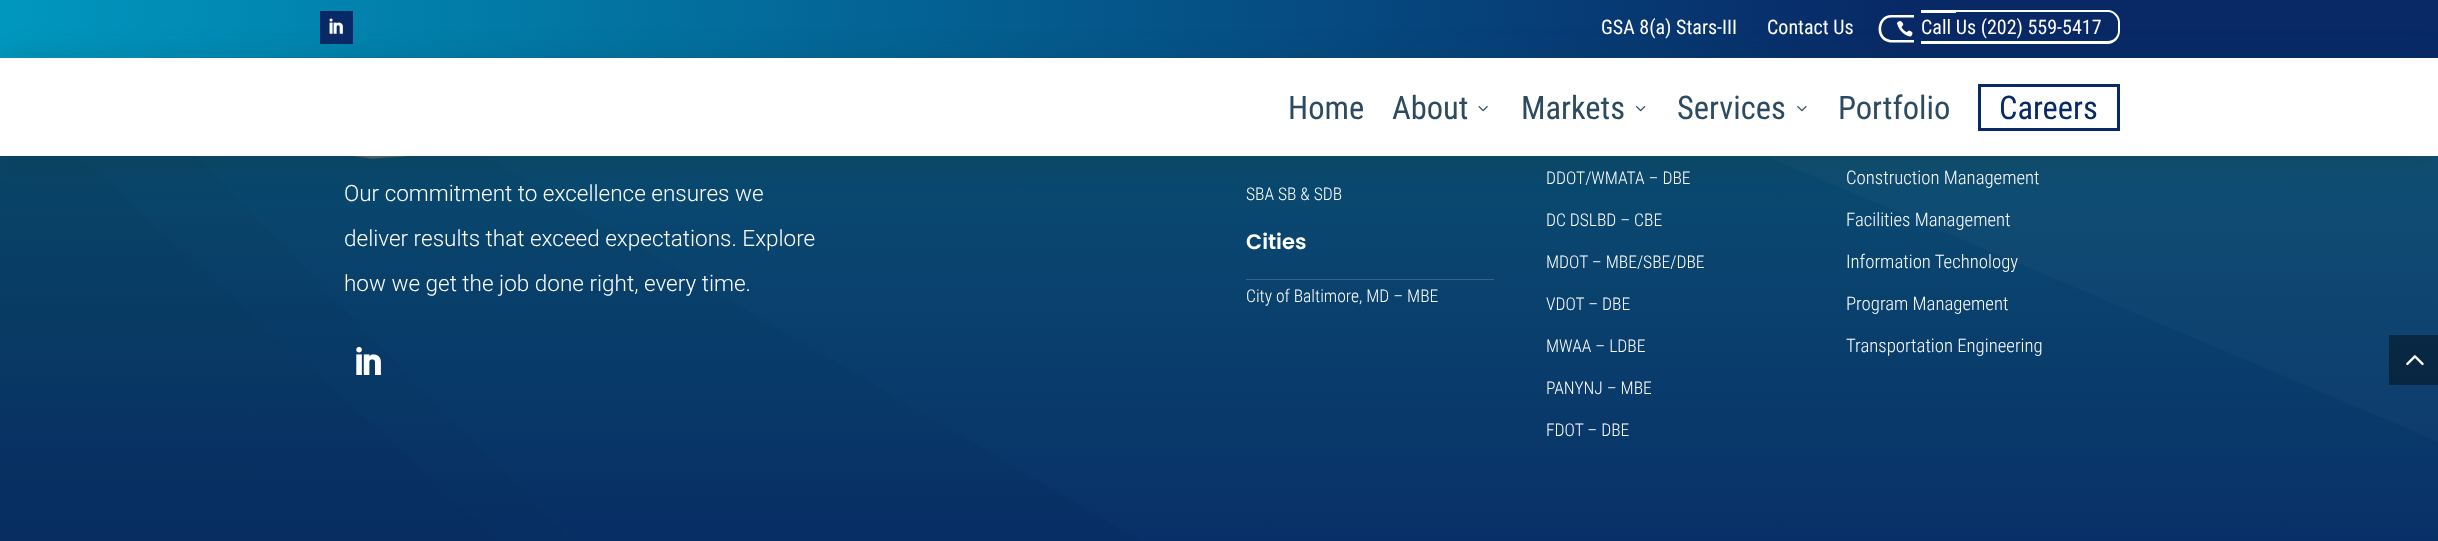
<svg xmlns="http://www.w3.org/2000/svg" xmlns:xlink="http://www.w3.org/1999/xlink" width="2438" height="541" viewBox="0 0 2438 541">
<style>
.cls-1{font:20px Roboto Condensed;fill:#ffffff}
.cls-2{font:32.5px Roboto Condensed;fill:#2c4a60}
.cls-3{font:32.5px Roboto Condensed;fill:#082966}
.cls-4{font:300 22.5px Roboto;fill:#ffffff}
.cls-5{font:300 17.5px Roboto Condensed;fill:#ffffff}
.cls-6{font:600 21px Poppins;fill:#ffffff}
.cls-7{font:300 18.75px Roboto Condensed;fill:#ffffff}
</style>
<defs>
<linearGradient id="g1" gradientUnits="userSpaceOnUse" x1="0" y1="29" x2="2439" y2="29"><stop offset="0" stop-color="#0097be"/><stop offset="0.78" stop-color="#082966"/></linearGradient>
</defs>
<rect width="100%" height="100%" fill="#ffffff"/>
<rect fill="url(#g1)" x="0" y="0" width="2438" height="58"/>
<image xlink:href="image5.png" x="0" y="156" width="2438" height="385"/>
<image xlink:href="image6.png" x="353" y="156" width="60" height="3"/>
<rect fill="#11393e" fill-opacity="0.32" filter="blur(16px)" x="0" y="65" width="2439" height="99"/>
<rect fill="#082966" x="320" y="11" width="33" height="33"/>
<image xlink:href="image0.png" x="329" y="18" width="14" height="16"/>
<path fill="#ffffff" fill-rule="evenodd" d="M1891 15H1914V42.5H1899C1894.5 42.5 1890 43 1886.5 41.5C1874 36.5 1877 15 1891 15ZM1891 17.5H1914V40H1899C1895 40 1891 40.5 1887.5 39C1877.5 35 1880 17.5 1891 17.5Z"/>
<image xlink:href="image1.png" x="1897" y="21" width="16" height="16"/>
<rect fill="#ffffff" x="1921" y="10" width="35" height="3"/>
<rect fill="#ffffff" x="1921" y="41" width="35" height="3"/>
<path fill="#ffffff" fill-rule="evenodd" d="M1956 10H2108C2114 10 2120 16 2120 22V31C2120 38 2114 44 2108 44H1956ZM1956 12H2108C2113 12 2118 17 2118 22V31C2118 37 2113 41 2108 41H1956Z"/>
<rect fill="#ffffff" x="0" y="58" width="2438" height="98"/>
<image xlink:href="image2.png" x="1478" y="106" width="10" height="6"/>
<image xlink:href="image3.png" x="1636" y="106" width="10" height="6"/>
<image xlink:href="image4.png" x="1797" y="106" width="10" height="6"/>
<rect fill="none" stroke="#082966" stroke-width="3" x="1979.5" y="85.5" width="139" height="44"/>
<image xlink:href="image7.png" x="356" y="346" width="25" height="29"/>
<rect fill="#366488" x="1246" y="279" width="248" height="1"/>
<rect fill="#000000" fill-opacity="0.4" x="2389" y="335" width="49" height="50"/>
<image xlink:href="image8.png" x="2406" y="355" width="18" height="11"/>
<text class="cls-1" x="1601" y="34">GSA 8(a) Stars-III</text>
<text class="cls-1" x="1767" y="34">Contact Us</text>
<text class="cls-1" x="1921" y="34">Call Us (202) 559-5417</text>
<text class="cls-2" x="1288" y="119">Home</text>
<text class="cls-2" x="1392" y="119">About</text>
<text class="cls-2" x="1521" y="119">Markets</text>
<text class="cls-2" x="1677" y="119">Services</text>
<text class="cls-2" x="1838" y="119">Portfolio</text>
<text class="cls-3" x="1999" y="119">Careers</text>
<text class="cls-4" x="344" y="201">Our commitment to excellence ensures we</text>
<text class="cls-4" x="344" y="246">deliver results that exceed expectations. Explore</text>
<text class="cls-4" x="344" y="291">how we get the job done right, every time.</text>
<text class="cls-5" x="1246" y="200">SBA SB &amp; SDB</text>
<text class="cls-6" x="1246" y="249">Cities</text>
<text class="cls-5" x="1246" y="302">City of Baltimore, MD – MBE</text>
<text class="cls-5" x="1546" y="184">DDOT/WMATA – DBE</text>
<text class="cls-5" x="1546" y="226">DC DSLBD – CBE</text>
<text class="cls-5" x="1546" y="268">MDOT – MBE/SBE/DBE</text>
<text class="cls-5" x="1546" y="310">VDOT – DBE</text>
<text class="cls-5" x="1546" y="352">MWAA – LDBE</text>
<text class="cls-5" x="1546" y="394">PANYNJ – MBE</text>
<text class="cls-5" x="1546" y="436">FDOT – DBE</text>
<text class="cls-7" x="1846" y="184">Construction Management</text>
<text class="cls-7" x="1846" y="226">Facilities Management</text>
<text class="cls-7" x="1846" y="268">Information Technology</text>
<text class="cls-7" x="1846" y="310">Program Management</text>
<text class="cls-7" x="1846" y="352">Transportation Engineering</text>
</svg>
